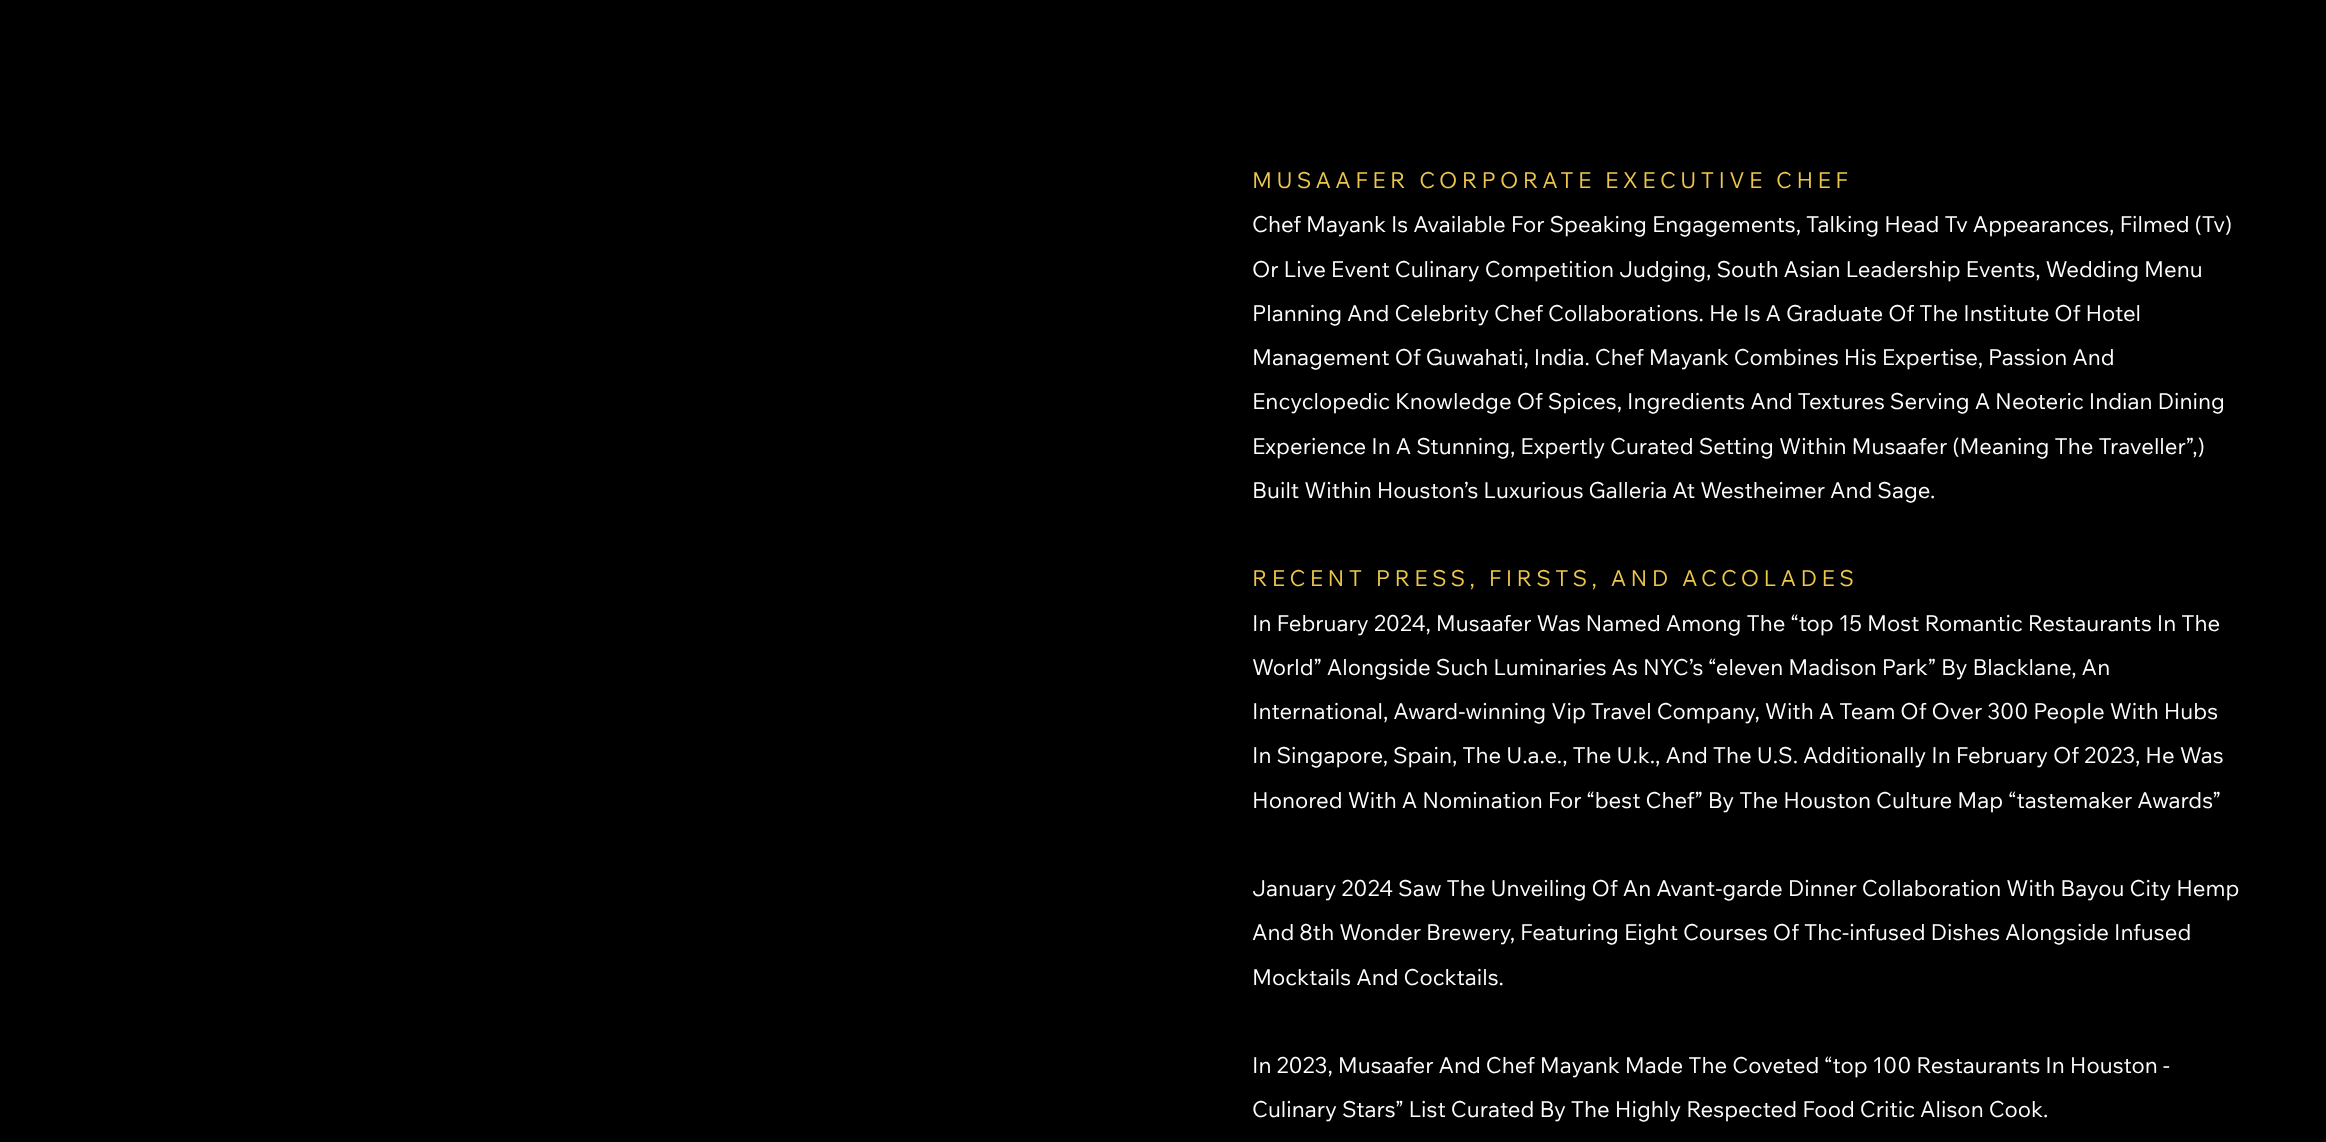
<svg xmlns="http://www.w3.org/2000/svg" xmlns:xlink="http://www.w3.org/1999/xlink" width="2326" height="1142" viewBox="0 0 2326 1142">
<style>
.cls-1{font:22.1px Wix Madefor Text;letter-spacing:4.4px;fill:#edc74d}
.cls-2{font:22.1px Wix Madefor Text;fill:#ffffff}
</style>
<rect width="100%" height="100%" fill="#000000"/>
<text class="cls-1" x="1252" y="188">MUSAAFER CORPORATE EXECUTIVE CHEF</text>
<text class="cls-2" x="1252" y="232">Chef Mayank Is Available For Speaking Engagements, Talking Head Tv Appearances, Filmed (Tv)</text>
<text class="cls-2"><tspan x="1252" y="277">Or Live Event Culinary Competition Judging, South Asian Leadership Events, Wedding Menu</tspan><tspan x="1252" y="321">Planning And Celebrity Chef Collaborations. He Is A Graduate Of The Institute Of Hotel</tspan><tspan x="1252" y="365">Management Of Guwahati, India. Chef Mayank Combines His Expertise, Passion And</tspan><tspan x="1252" y="409">Encyclopedic Knowledge Of Spices, Ingredients And Textures Serving A Neoteric Indian Dining</tspan></text>
<text class="cls-2"><tspan x="1252" y="454">Experience In A Stunning, Expertly Curated Setting Within Musaafer (Meaning The Traveller”,)</tspan><tspan x="1252" y="498">Built Within Houston’s Luxurious Galleria At Westheimer And Sage.</tspan></text>
<text class="cls-1" x="1252" y="586">RECENT PRESS, FIRSTS, AND ACCOLADES</text>
<text class="cls-2"><tspan x="1252" y="631">In February 2024, Musaafer Was Named Among The “top 15 Most Romantic Restaurants In The</tspan><tspan x="1252" y="675">World” Alongside Such Luminaries As NYC’s “eleven Madison Park” By Blacklane, An</tspan><tspan x="1252" y="719">International, Award-winning Vip Travel Company, With A Team Of Over 300 People With Hubs</tspan><tspan x="1252" y="763">In Singapore, Spain, The U.a.e., The U.k., And The U.S. Additionally In February Of 2023, He Was</tspan></text>
<text class="cls-2" x="1252" y="808">Honored With A Nomination For “best Chef” By The Houston Culture Map “tastemaker Awards”</text>
<text class="cls-2"><tspan x="1252" y="896">January 2024 Saw The Unveiling Of An Avant-garde Dinner Collaboration With Bayou City Hemp</tspan><tspan x="1252" y="940">And 8th Wonder Brewery, Featuring Eight Courses Of Thc-infused Dishes Alongside Infused</tspan></text>
<text class="cls-2" x="1252" y="985">Mocktails And Cocktails.</text>
<text class="cls-2"><tspan x="1252" y="1073">In 2023, Musaafer And Chef Mayank Made The Coveted “top 100 Restaurants In Houston -</tspan><tspan x="1252" y="1117">Culinary Stars” List Curated By The Highly Respected Food Critic Alison Cook.</tspan></text>
</svg>
